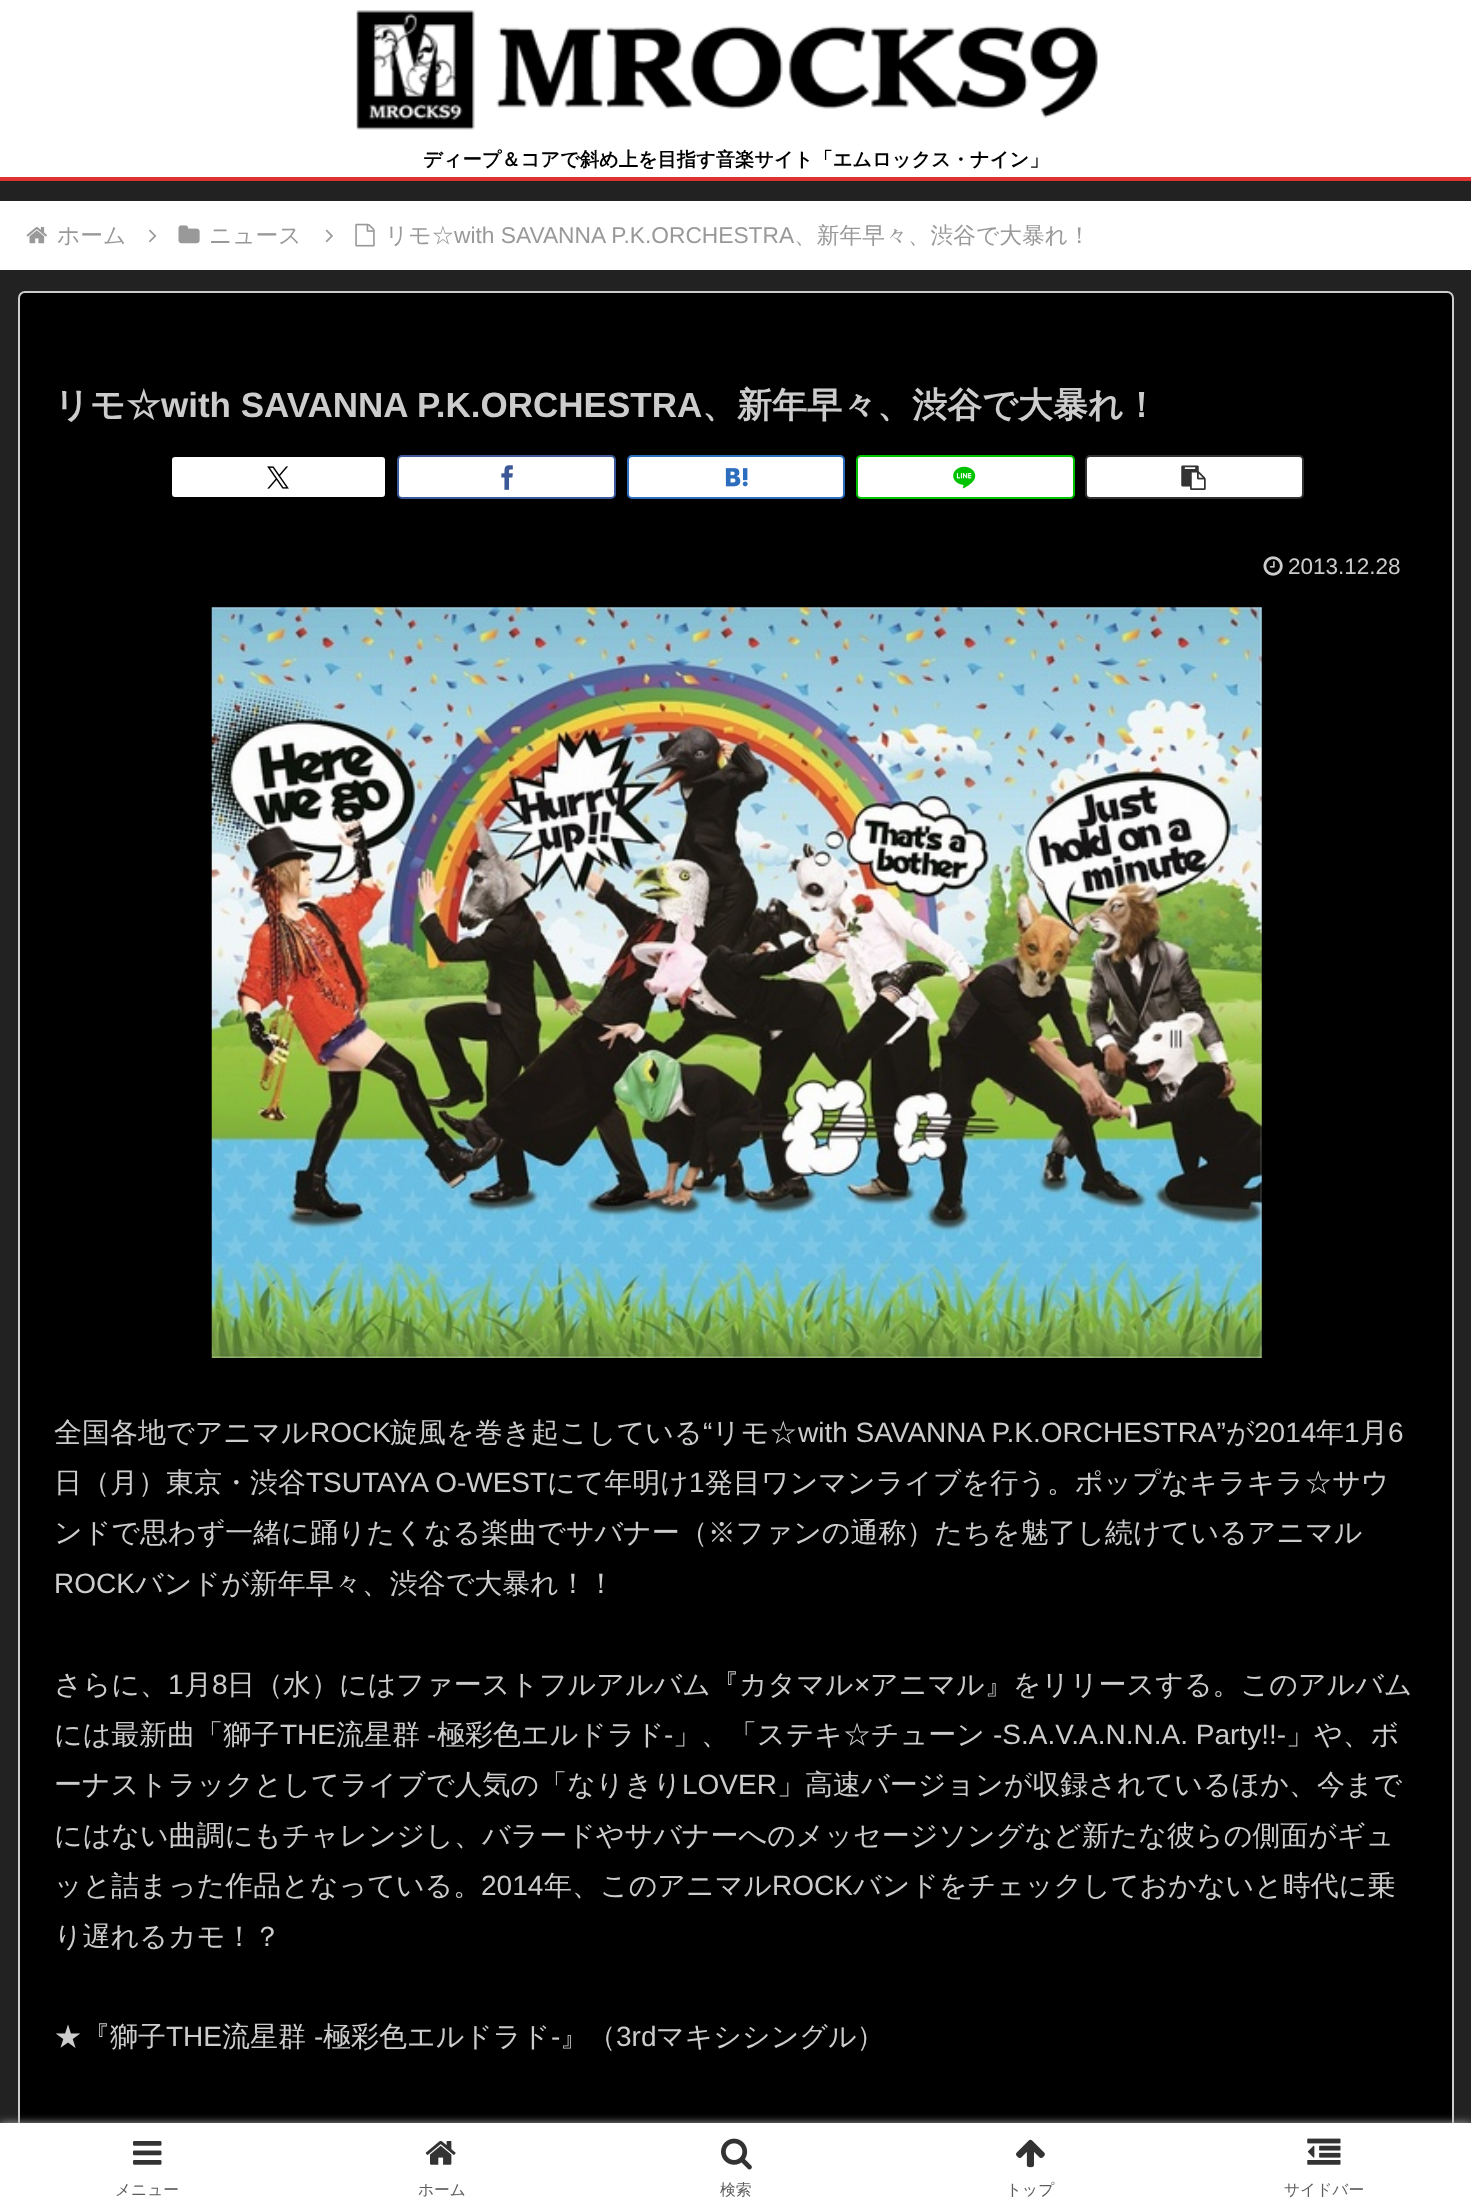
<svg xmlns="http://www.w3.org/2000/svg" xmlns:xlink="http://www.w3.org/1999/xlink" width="1471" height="2210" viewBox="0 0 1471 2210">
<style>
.cls-1{font:bold 19.25px WenQuanYi Zen Hei;fill:#000000}
.cls-2{font:500 22.75px WenQuanYi Zen Hei;fill:#999999}
.cls-3{font:22.75px Liberation Sans;fill:#999999}
.cls-4{font:bold 35px WenQuanYi Zen Hei;fill:#cccccc}
.cls-5{font:bold 35px Liberation Sans;fill:#cccccc}
.cls-6{font:22.5px Liberation Sans;fill:#cccccc}
.cls-7{font:500 28px WenQuanYi Zen Hei;fill:#cccccc}
.cls-8{font:28px Liberation Sans;fill:#cccccc}
.cls-9{font:500 15.75px WenQuanYi Zen Hei;fill:#5c5c5c}
</style>
<rect width="100%" height="100%" fill="#222222"/>
<rect fill="#ffffff" x="0" y="0" width="1471" height="177"/>
<image xlink:href="image0.png" x="356" y="10" width="742" height="120"/>
<rect fill="#dd3333" x="0" y="177" width="1471" height="4"/>
<rect fill="#ffffff" x="0" y="201" width="1471" height="69"/>
<image xlink:href="image1.png" x="26" y="227" width="21" height="17"/>
<image xlink:href="image2.png" x="149" y="229" width="8" height="14"/>
<image xlink:href="image3.png" x="178" y="225" width="22" height="19"/>
<image xlink:href="image4.png" x="325" y="229" width="8" height="14"/>
<image xlink:href="image5.png" x="355" y="223" width="20" height="24"/>
<rect fill="#000000" stroke="#cccccc" stroke-width="2" x="19" y="292" width="1434" height="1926" rx="6"/>
<rect fill="#ffffff" stroke="#000000" stroke-width="2" x="171" y="456" width="215" height="42" rx="4"/>
<image xlink:href="image6.png" x="267" y="466" width="22" height="23"/>
<rect fill="#ffffff" stroke="#3b5998" stroke-width="2" x="398" y="456" width="217" height="42" rx="4"/>
<image xlink:href="image7.png" x="501" y="465" width="12" height="25"/>
<rect fill="#ffffff" stroke="#2c6ebd" stroke-width="2" x="628" y="456" width="216" height="42" rx="4"/>
<image xlink:href="image8.png" x="725" y="468" width="23" height="19"/>
<rect fill="#ffffff" stroke="#00c300" stroke-width="2" x="857" y="456" width="217" height="42" rx="4"/>
<image xlink:href="image9.png" x="953" y="466" width="23" height="23"/>
<rect fill="#ffffff" stroke="#333333" stroke-width="2" x="1086" y="456" width="217" height="42" rx="4"/>
<image xlink:href="image10.png" x="1181" y="465" width="25" height="25"/>
<image xlink:href="image11.png" x="1263" y="556" width="20" height="20"/>
<image xlink:href="image12.png" x="211" y="607" width="1051" height="751"/>
<rect fill="#a9a9a9" filter="blur(4.5px)" x="0" y="2123" width="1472" height="87"/>
<rect fill="#ffffff" x="0" y="2123" width="1471" height="87"/>
<image xlink:href="image13.png" x="133" y="2141" width="29" height="24"/>
<image xlink:href="image14.png" x="425" y="2141" width="31" height="24"/>
<image xlink:href="image15.png" x="721" y="2138" width="31" height="32"/>
<image xlink:href="image16.png" x="1016" y="2139" width="29" height="29"/>
<image xlink:href="image17.png" x="1307" y="2138" width="34" height="27"/>
<text class="cls-1" x="423" y="166">ディープ＆コアで斜め上を目指す音楽サイト「エムロックス・ナイン」</text>
<text class="cls-2" x="57" y="243">ホーム</text>
<text class="cls-2" x="209" y="243">ニュース</text>
<text class="cls-2" x="385" y="243">リモ☆</text>
<text class="cls-3" x="454" y="243">with SAVANNA P.K.ORCHESTRA</text>
<text class="cls-2" x="794" y="243">、新年早々、渋谷で大暴れ！</text>
<text class="cls-4" x="54" y="417">リモ☆</text>
<text class="cls-5" x="161" y="417">with SAVANNA P.K.ORCHESTRA</text>
<text class="cls-4" x="702" y="417">、新年早々、渋谷で大暴れ！</text>
<text class="cls-6" x="1288" y="574">2013.12.28</text>
<text class="cls-7" x="54" y="1442">全国各地でアニマル</text>
<text class="cls-8" x="310" y="1442">ROCK</text>
<text class="cls-7" x="390" y="1442">旋風を巻き起こしている</text>
<text class="cls-8" x="703" y="1442">“</text>
<text class="cls-7" x="712" y="1442">リモ☆</text>
<text class="cls-8" x="798" y="1442">with SAVANNA P.K.ORCHESTRA”</text>
<text class="cls-7" x="1226" y="1442">が</text>
<text class="cls-8" x="1254" y="1442">2014</text>
<text class="cls-7" x="1316" y="1442">年</text>
<text class="cls-8" x="1344" y="1442">1</text>
<text class="cls-7" x="1360" y="1442">月</text>
<text class="cls-8" x="1388" y="1442">6</text>
<text class="cls-7" x="54" y="1492">日（月）東京・渋谷</text>
<text class="cls-8" x="306" y="1492">TSUTAYA O-WEST</text>
<text class="cls-7" x="547" y="1492">にて年明け</text>
<text class="cls-8" x="689" y="1492">1</text>
<text class="cls-7" x="705" y="1492">発目ワンマンライブを行う。ポップなキラキラ☆サウ</text>
<text class="cls-7" x="54" y="1542">ンドで思わず一緒に踊りたくなる楽曲でサバナー（※ファンの通称）たちを魅了し続けているアニマル</text>
<text class="cls-8" x="54" y="1593">ROCK</text>
<text class="cls-7" x="135" y="1593">バンドが新年早々、渋谷で大暴れ！！</text>
<text class="cls-7" x="54" y="1694">さらに、</text>
<text class="cls-8" x="168" y="1694">1</text>
<text class="cls-7" x="184" y="1694">月</text>
<text class="cls-8" x="212" y="1694">8</text>
<text class="cls-7" x="227" y="1694">日（水）にはファーストフルアルバム『カタマル</text>
<text class="cls-8" x="854" y="1694">×</text>
<text class="cls-7" x="870" y="1694">アニマル』をリリースする。このアルバム</text>
<text class="cls-7" x="54" y="1744">には最新曲「獅子</text>
<text class="cls-8" x="280" y="1744">THE</text>
<text class="cls-7" x="336" y="1744">流星群</text>
<text class="cls-8" x="427" y="1744">-</text>
<text class="cls-7" x="437" y="1744">極彩色エルドラド</text>
<text class="cls-8" x="664" y="1744">-</text>
<text class="cls-7" x="673" y="1744">」、「ステキ☆チューン</text>
<text class="cls-8" x="993" y="1744">-S.A.V.A.N.N.A. Party!!-</text>
<text class="cls-7" x="1286" y="1744">」や、ボ</text>
<text class="cls-7" x="54" y="1794">ーナストラックとしてライブで人気の「なりきり</text>
<text class="cls-8" x="682" y="1794">LOVER</text>
<text class="cls-7" x="777" y="1794">」高速バージョンが収録されているほか、今まで</text>
<text class="cls-7"><tspan x="54" y="1845">にはない曲調にもチャレンジし、バラードやサバナーへのメッセージソングなど新たな彼らの側面がギュ</tspan><tspan x="54" y="1895">ッと詰まった作品となっている。</tspan></text>
<text class="cls-8" x="481" y="1895">2014</text>
<text class="cls-7" x="544" y="1895">年、このアニマル</text>
<text class="cls-8" x="772" y="1895">ROCK</text>
<text class="cls-7" x="853" y="1895">バンドをチェックしておかないと時代に乗</text>
<text class="cls-7" x="54" y="1946">り遅れるカモ！？</text>
<text class="cls-7" x="54" y="2046">★『獅子</text>
<text class="cls-8" x="166" y="2046">THE</text>
<text class="cls-7" x="222" y="2046">流星群</text>
<text class="cls-8" x="314" y="2046">-</text>
<text class="cls-7" x="323" y="2046">極彩色エルドラド</text>
<text class="cls-8" x="551" y="2046">-</text>
<text class="cls-7" x="560" y="2046">』（</text>
<text class="cls-8" x="616" y="2046">3rd</text>
<text class="cls-7" x="656" y="2046">マキシシングル）</text>
<text class="cls-9" x="115" y="2195">メニュー</text>
<text class="cls-9" x="418" y="2195">ホーム</text>
<text class="cls-9" x="720" y="2195">検索</text>
<text class="cls-9" x="1006" y="2195">トップ</text>
<text class="cls-9" x="1284" y="2195">サイドバー</text>
</svg>
